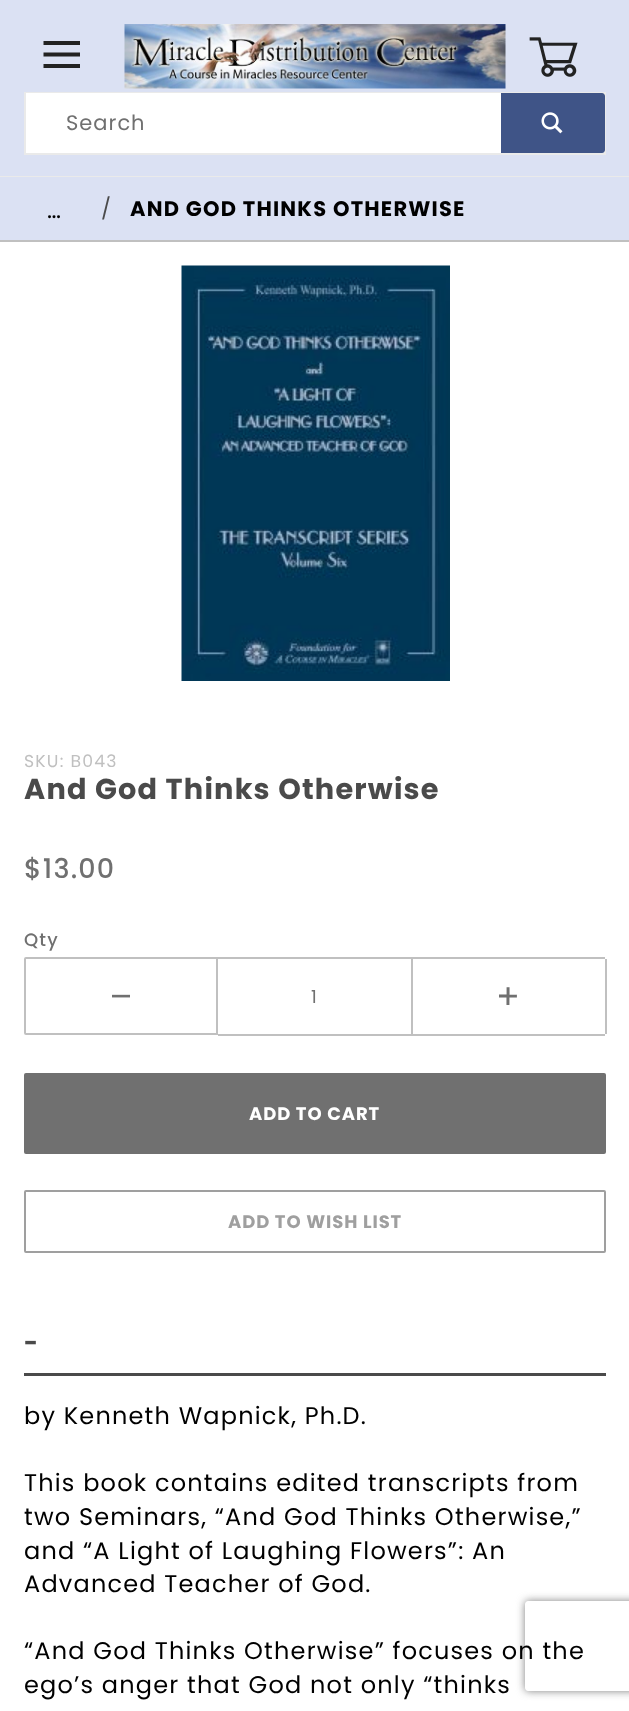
<svg xmlns="http://www.w3.org/2000/svg" xmlns:xlink="http://www.w3.org/1999/xlink" width="629" height="1711" viewBox="0 0 629 1711">
<style>
.cls-1{font:21px Poppins;letter-spacing:1px;fill:#707070}
.cls-2{font:24px Poppins;letter-spacing:1.2px;fill:#000000}
.cls-3{font:21px Poppins;letter-spacing:1.2px;fill:#4a4a4a}
.cls-4{font:bold 21px Poppins;letter-spacing:1.2px;fill:#000000}
.cls-5{font:17.25px Poppins;letter-spacing:1.2px;fill:#c0c0c0}
.cls-6{font:bold 28.75px Poppins;letter-spacing:1.2px;fill:#4a4a4a}
.cls-7{font:500 27px Poppins;letter-spacing:1.2px;fill:#707070}
.cls-8{font:500 18px Poppins;letter-spacing:1.2px;fill:#707070}
.cls-9{font:18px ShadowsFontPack;letter-spacing:0.9px;fill:#707070}
.cls-10{font:18px Poppins;letter-spacing:0.9px;fill:#707070}
.cls-11{font:bold 18px Poppins;letter-spacing:0.9px;fill:#ffffff}
.cls-12{font:bold 18px Poppins;letter-spacing:0.9px;fill:#9f9f9f}
.cls-13{font:bold 24px Poppins;letter-spacing:1.2px;fill:#4a4a4a}
</style>
<defs>
<clipPath id="clip1"><path d="M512 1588H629V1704H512ZM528 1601H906C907.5 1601 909 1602.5 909 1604V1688C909 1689.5 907.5 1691 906 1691H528C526.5 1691 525 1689.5 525 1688V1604C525 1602.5 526.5 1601 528 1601Z" clip-rule="evenodd"/></clipPath>
</defs>
<rect width="100%" height="100%" fill="#ffffff"/>
<rect fill="#dbe1f3" x="0" y="0" width="629" height="176"/>
<rect fill="#eaeaea" x="0" y="176" width="629" height="1"/>
<path fill="#222222" d="M43.5 64V68H80V64ZM43.5 52.5V56.5H80V52.5ZM43.5 41V45H80V41Z"/>
<image xlink:href="image0.png" x="124" y="24" width="382" height="65"/>
<image xlink:href="image1.png" x="529" y="37" width="49" height="40"/>
<rect fill="none" stroke="#eaeaea" stroke-width="2" x="25" y="93" width="580" height="61"/>
<rect fill="#ffffff" x="26" y="93" width="475" height="60"/>
<path fill="#3f5487" d="M501 93H602C603.5 93 605 94.5 605 96V150C605 151.5 603.5 153 602 153H501Z"/>
<image xlink:href="image2.png" x="541" y="112" width="22" height="22"/>
<rect fill="#dbe1f3" x="0" y="177" width="629" height="63"/>
<rect fill="#c0c0c0" x="0" y="240" width="629" height="2"/>
<image xlink:href="image3.png" x="181" y="265" width="269" height="416"/>
<path fill="none" stroke="#c0c0c0" stroke-width="2" d="M26 958H217V1034H26C25.5 1034 25 1033.5 25 1033V959C25 958.5 25.5 958 26 958Z"/>
<rect fill="#c0c0c0" x="218" y="957" width="387" height="2"/>
<rect fill="#c0c0c0" x="411" y="957" width="2" height="78"/>
<rect fill="#c0c0c0" x="218" y="1034" width="387" height="2"/>
<rect fill="#c0c0c0" x="605" y="959" width="2" height="75"/>
<rect fill="#707070" x="24" y="1073" width="582" height="81" rx="2"/>
<rect fill="none" stroke="#9f9f9f" stroke-width="2" x="25" y="1191" width="580" height="61" rx="1"/>
<rect fill="#4a4a4a" x="24" y="1373" width="582" height="3"/>
<g clip-path="url(#clip1)">
<rect fill="#808080" filter="blur(4px)" x="525" y="1601" width="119" height="90" rx="3"/>
</g>
<text class="cls-1" x="66" y="130">Search</text>
<text class="cls-2" x="47" y="218">…</text>
<text class="cls-3" x="101" y="216">/</text>
<text class="cls-4" x="130" y="216">AND GOD THINKS OTHERWISE</text>
<text class="cls-5" x="24" y="767">SKU: B043</text>
<text class="cls-6" x="24" y="799">And God Thinks Otherwise</text>
<text class="cls-7" x="24" y="878">$13.00</text>
<text class="cls-8" x="24" y="946">Qty</text>
<text class="cls-9" x="112" y="1004">&lt;</text>
<text class="cls-10" x="311" y="1003">1</text>
<text class="cls-9" x="499" y="1004">=</text>
<text class="cls-11" x="249" y="1120">ADD TO CART</text>
<text class="cls-12" x="228" y="1228">ADD TO WISH LIST</text>
<text class="cls-13" x="24" y="1351">-</text>
<text class="cls-2" x="24" y="1424">by Kenneth Wapnick, Ph.D.</text>
<text class="cls-2"><tspan x="24" y="1491">This book contains edited transcripts from</tspan><tspan x="24" y="1525">two Seminars, “And God Thinks Otherwise,”</tspan><tspan x="24" y="1559">and “A Light of Laughing Flowers”: An</tspan><tspan x="24" y="1592">Advanced Teacher of God.</tspan></text>
<text class="cls-2"><tspan x="24" y="1659">“And God Thinks Otherwise” focuses on the</tspan><tspan x="24" y="1693">ego’s anger that God not only “thinks</tspan></text>
</svg>
